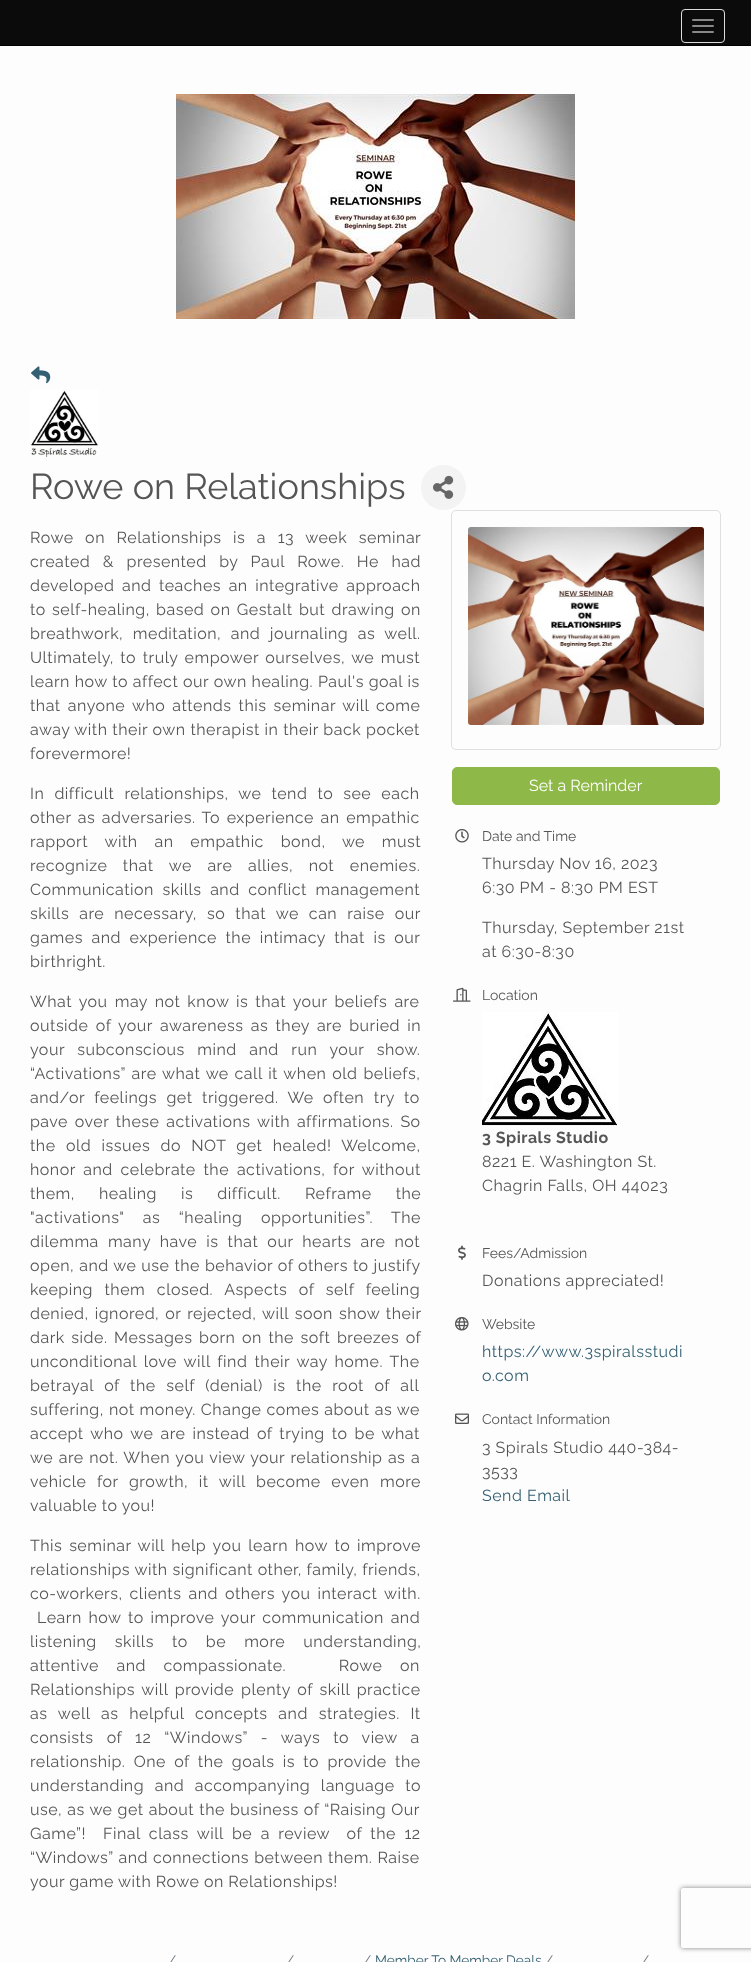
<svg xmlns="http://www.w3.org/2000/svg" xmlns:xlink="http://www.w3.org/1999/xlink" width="751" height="1962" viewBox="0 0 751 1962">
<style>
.cls-1{font:36px Raleway;fill:#555555}
.cls-2{font:16px Raleway;letter-spacing:0.5px;fill:#555555}
.cls-3{font:16px Raleway;fill:#ffffff}
.cls-4{font:14px Raleway;fill:#555555}
.cls-5{font:bold 16px Raleway;letter-spacing:0.5px;fill:#555555}
.cls-6{font:16px Raleway;letter-spacing:0.5px;fill:#346073}
.cls-7{font:13.6px Raleway;fill:#6c757d}
.cls-8{font:13.6px Raleway;fill:#346073}
</style>
<defs>
<clipPath id="clip1"><path d="M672 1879H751V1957H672ZM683 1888H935C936 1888 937 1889 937 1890V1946C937 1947 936 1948 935 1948H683C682 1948 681 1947 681 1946V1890C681 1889 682 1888 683 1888Z" clip-rule="evenodd"/></clipPath>
</defs>
<rect width="100%" height="100%" fill="#fdfdfd"/>
<rect fill="#0b0b0c" x="0" y="0" width="751" height="45"/>
<rect fill="#000000" x="0" y="45" width="751" height="1"/>
<rect fill="none" stroke="#dddddd" x="681.5" y="9.5" width="43" height="33" rx="3.5"/>
<rect fill="#888888" x="692" y="19" width="22" height="2" rx="1"/>
<rect fill="#888888" x="692" y="25" width="22" height="2" rx="1"/>
<rect fill="#888888" x="692" y="31" width="22" height="2" rx="1"/>
<image xlink:href="image0.png" x="176" y="94" width="399" height="225"/>
<image xlink:href="image1.png" x="31" y="366" width="20" height="18"/>
<image xlink:href="image2.png" x="30" y="390" width="69" height="67"/>
<circle fill="#f3f3f3" cx="443.5" cy="487.5" r="22.5"/>
<image xlink:href="image3.png" x="433" y="475" width="21" height="24"/>
<rect fill="none" stroke="#dfdfdf" x="451.5" y="510.5" width="269" height="239" rx="4.5"/>
<image xlink:href="image4.png" x="468" y="527" width="236" height="198"/>
<rect fill="#8eb848" stroke="#8eb848" x="452.5" y="767.5" width="267" height="37" rx="4.5"/>
<image xlink:href="image5.png" x="455" y="829" width="14" height="14"/>
<image xlink:href="image6.png" x="453" y="987" width="18" height="15"/>
<image xlink:href="image7.png" x="482" y="1012" width="136" height="114"/>
<image xlink:href="image8.png" x="458" y="1245" width="8" height="15"/>
<image xlink:href="image9.png" x="455" y="1317" width="14" height="14"/>
<image xlink:href="image10.png" x="455" y="1413" width="14" height="11"/>
<g clip-path="url(#clip1)">
<rect fill="#808080" filter="blur(2.5px)" x="681" y="1888" width="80" height="60" rx="2"/>
</g>
<text class="cls-1" x="30" y="499">Rowe on Relationships</text>
<text class="cls-2"><tspan x="30" y="543" word-spacing="7">Rowe on Relationships is a 13 week seminar</tspan><tspan x="30" y="567" word-spacing="8">created &amp; presented by Paul Rowe. He had</tspan><tspan x="30" y="591" word-spacing="3">developed and teaches an integrative approach</tspan><tspan x="30" y="615" word-spacing="1.75">to self-healing, based on Gestalt but drawing on</tspan><tspan x="30" y="639" word-spacing="5">breathwork, meditation, and journaling as well.</tspan><tspan x="30" y="663" word-spacing="2">Ultimately, to truly empower ourselves, we must</tspan><tspan x="30" y="687" word-spacing="0.25">learn how to affect our own healing. Paul's goal is</tspan><tspan x="30" y="711" word-spacing="2.5">that anyone who attends this seminar will come</tspan><tspan x="30" y="735" word-spacing="0.25">away with their own therapist in their back pocket</tspan><tspan x="30" y="759">forevermore!</tspan></text>
<text class="cls-2"><tspan x="30" y="799" word-spacing="5.5">In difficult relationships, we tend to see each</tspan><tspan x="30" y="823" word-spacing="2">other as adversaries. To experience an empathic</tspan><tspan x="30" y="847" word-spacing="12.25">rapport with an empathic bond, we must</tspan><tspan x="30" y="871" word-spacing="11">recognize that we are allies, not enemies.</tspan><tspan x="30" y="895" word-spacing="4">Communication skills and conflict management</tspan><tspan x="30" y="919" word-spacing="5.5">skills are necessary, so that we can raise our</tspan><tspan x="30" y="943" word-spacing="4">games and experience the intimacy that is our</tspan><tspan x="30" y="967">birthright.</tspan></text>
<text class="cls-2"><tspan x="30" y="1007" word-spacing="2.5">What you may not know is that your beliefs are</tspan><tspan x="30" y="1031" word-spacing="2.75">outside of your awareness as they are buried in</tspan><tspan x="30" y="1055" word-spacing="8">your subconscious mind and run your show.</tspan><tspan x="30" y="1079" word-spacing="1.25">“Activations” are what we call it when old beliefs,</tspan><tspan x="30" y="1103" word-spacing="5">and/or feelings get triggered. We often try to</tspan><tspan x="30" y="1127" word-spacing="2.25">pave over these activations with affirmations. So</tspan><tspan x="30" y="1151" word-spacing="5.75">the old issues do NOT get healed! Welcome,</tspan><tspan x="30" y="1175" word-spacing="3.25">honor and celebrate the activations, for without</tspan><tspan x="30" y="1199" word-spacing="19.5">them, healing is difficult. Reframe the</tspan><tspan x="30" y="1223" word-spacing="14">"activations" as “healing opportunities”. The</tspan><tspan x="30" y="1247" word-spacing="4.5">dilemma many have is that our hearts are not</tspan><tspan x="30" y="1271" word-spacing="0.4">open, and we use the behavior of others to justify</tspan><tspan x="30" y="1295" word-spacing="7">keeping them closed. Aspects of self feeling</tspan><tspan x="30" y="1319" word-spacing="1.5">denied, ignored, or rejected, will soon show their</tspan><tspan x="30" y="1343" word-spacing="2">dark side. Messages born on the soft breezes of</tspan><tspan x="30" y="1367" word-spacing="2.5">unconditional love will find their way home. The</tspan><tspan x="30" y="1391" word-spacing="6">betrayal of the self (denial) is the root of all</tspan><tspan x="30" y="1415" word-spacing="0.5">suffering, not money. Change comes about as we</tspan><tspan x="30" y="1439" word-spacing="2.5">accept who we are instead of trying to be what</tspan><tspan x="30" y="1463" word-spacing="1">we are not. When you view your relationship as a</tspan><tspan x="30" y="1487" word-spacing="6">vehicle for growth, it will become even more</tspan><tspan x="30" y="1511">valuable to you!</tspan></text>
<text class="cls-2"><tspan x="30" y="1551" word-spacing="2.25">This seminar will help you learn how to improve</tspan><tspan x="30" y="1575" word-spacing="0.25">relationships with significant other, family, friends,</tspan><tspan x="30" y="1599" word-spacing="2.5">co-workers, clients and others you interact with.</tspan></text>
<text class="cls-2" x="37" y="1623" word-spacing="2.25">Learn how to improve your communication and</text>
<text class="cls-2" xml:space="preserve"><tspan x="30" y="1647" word-spacing="13.5">listening skills to be more understanding,</tspan><tspan x="30" y="1671" word-spacing="13">attentive and compassionate.   Rowe on</tspan><tspan x="30" y="1695" word-spacing="2.25">Relationships will provide plenty of skill practice</tspan><tspan x="30" y="1719" word-spacing="6.25">as well as helpful concepts and strategies. It</tspan><tspan x="30" y="1743" word-spacing="8.5">consists of 12 “Windows” - ways to view a</tspan><tspan x="30" y="1767" word-spacing="3.75">relationship. One of the goals is to provide the</tspan><tspan x="30" y="1791" word-spacing="6">understanding and accompanying language to</tspan><tspan x="30" y="1815" word-spacing="0.5">use, as we get about the business of “Raising Our</tspan><tspan x="30" y="1839" word-spacing="3.9">Game”!  Final class will be a review  of the 12</tspan><tspan x="30" y="1863" word-spacing="0.5">“Windows” and connections between them. Raise</tspan><tspan x="30" y="1887">your game with Rowe on Relationships!</tspan></text>
<text class="cls-3" x="529" y="791">Set a Reminder</text>
<text class="cls-4" x="482" y="841">Date and Time</text>
<text class="cls-2"><tspan x="482" y="869">Thursday Nov 16, 2023</tspan><tspan x="482" y="893">6:30 PM - 8:30 PM EST</tspan></text>
<text class="cls-2"><tspan x="482" y="933">Thursday, September 21st</tspan><tspan x="482" y="957">at 6:30-8:30</tspan></text>
<text class="cls-4" x="482" y="1000">Location</text>
<text class="cls-5" x="482" y="1143">3 Spirals Studio</text>
<text class="cls-2"><tspan x="482" y="1167">8221 E. Washington St.</tspan><tspan x="482" y="1191">Chagrin Falls, OH 44023</tspan></text>
<text class="cls-4" x="482" y="1258">Fees/Admission</text>
<text class="cls-2" x="482" y="1286">Donations appreciated!</text>
<text class="cls-4" x="482" y="1329">Website</text>
<text class="cls-6"><tspan x="482" y="1357">https://www.3spiralsstudi</tspan><tspan x="482" y="1381">o.com</tspan></text>
<text class="cls-4" x="482" y="1424">Contact Information</text>
<text class="cls-2"><tspan x="482" y="1453">3 Spirals Studio 440-384-</tspan><tspan x="482" y="1477">3533</tspan></text>
<text class="cls-6" x="482" y="1501">Send Email</text>
<text class="cls-7" x="168" y="1965">/</text>
<text class="cls-7" x="286" y="1965">/</text>
<text class="cls-7" x="363" y="1965">/</text>
<text class="cls-8" x="375" y="1965">Member To Member Deals</text>
<text class="cls-7" x="545" y="1965">/</text>
<text class="cls-7" x="641" y="1965">/</text>
</svg>
